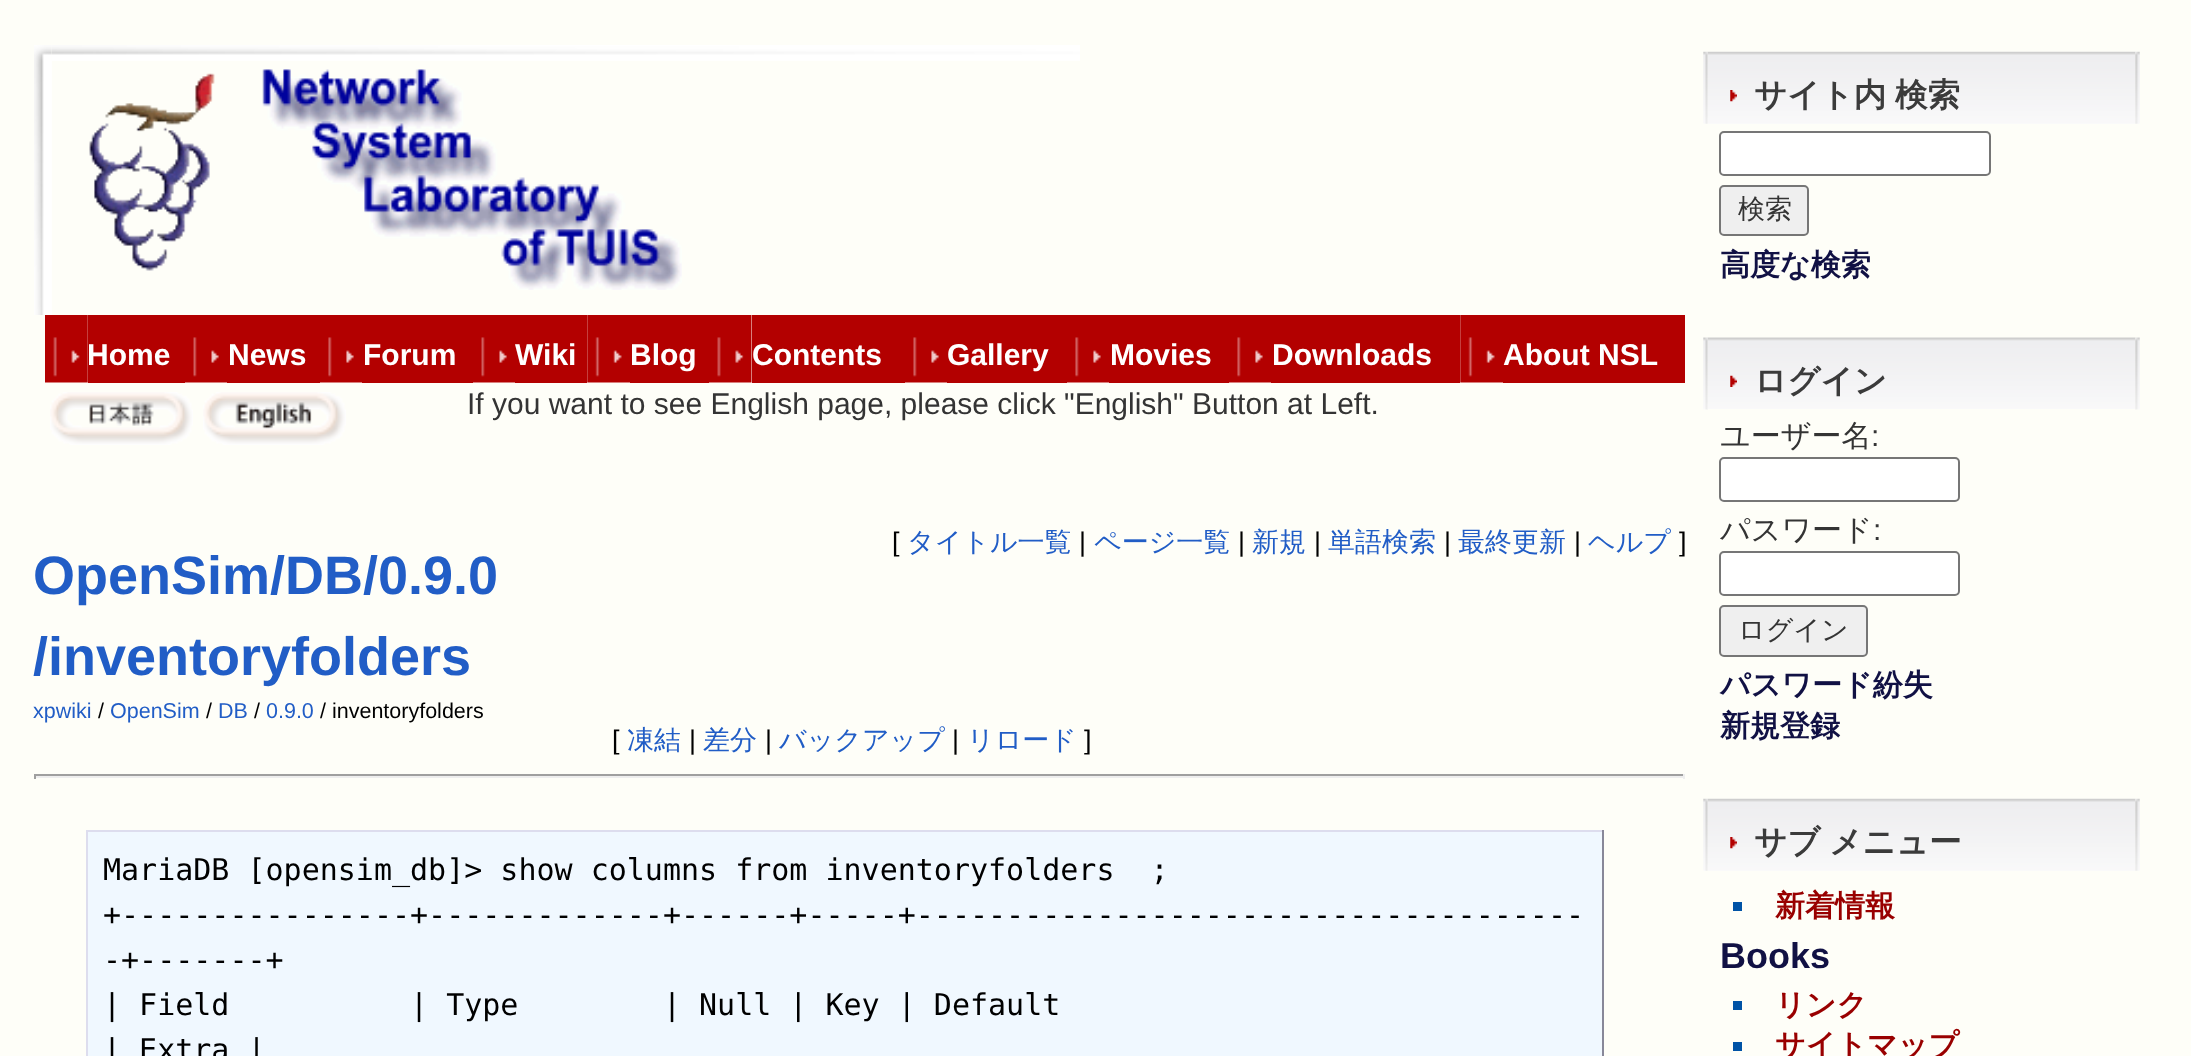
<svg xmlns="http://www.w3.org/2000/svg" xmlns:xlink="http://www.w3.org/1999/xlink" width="2191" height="1056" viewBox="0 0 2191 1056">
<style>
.cls-1{font:bold 30px Liberation Sans;fill:#ffffff}
.cls-2{font:30px Liberation Sans;fill:#343434}
.cls-3{font:27px Liberation Sans;fill:#000000}
.cls-4{font:500 27px WenQuanYi Zen Hei;fill:#215dc6}
.cls-5{font:bold 54px Liberation Sans;fill:#215dc6}
.cls-6{font:21.5px Liberation Sans;fill:#215dc6}
.cls-7{font:21.5px Liberation Sans;fill:#000000}
.cls-8{font:30px DejaVu Sans Mono;fill:#000000}
.cls-9{font:bold 32.5px WenQuanYi Zen Hei;fill:#3b3b3b}
.cls-10{font:500 27px WenQuanYi Zen Hei;fill:#343434}
.cls-11{font:bold 30px WenQuanYi Zen Hei;fill:#111144}
.cls-12{font:500 30px WenQuanYi Zen Hei;fill:#343434}
.cls-13{font:bold 30px WenQuanYi Zen Hei;fill:#990000}
.cls-14{font:bold 36px Liberation Sans;fill:#111144}
</style>
<rect width="100%" height="100%" fill="#fefef8"/>
<image xlink:href="image0.png" x="34" y="45" width="18" height="270"/>
<image xlink:href="image1.png" x="52" y="45" width="1028" height="16"/>
<image xlink:href="image2.png" x="89" y="69" width="593" height="221"/>
<image xlink:href="image3.png" x="45" y="315" width="43" height="68"/>
<rect fill="#b30000" x="88" y="315" width="97" height="68"/>
<image xlink:href="image4.png" x="185" y="315" width="42" height="68"/>
<rect fill="#b30000" x="227" y="315" width="93" height="68"/>
<image xlink:href="image5.png" x="320" y="315" width="42" height="68"/>
<rect fill="#b30000" x="362" y="315" width="111" height="68"/>
<image xlink:href="image4.png" x="473" y="315" width="42" height="68"/>
<rect fill="#b30000" x="515" y="315" width="72" height="68"/>
<image xlink:href="image6.png" x="587" y="315" width="43" height="68"/>
<rect fill="#b30000" x="630" y="315" width="79" height="68"/>
<image xlink:href="image7.png" x="709" y="315" width="43" height="68"/>
<rect fill="#b30000" x="752" y="315" width="153" height="68"/>
<image xlink:href="image5.png" x="905" y="315" width="42" height="68"/>
<rect fill="#b30000" x="947" y="315" width="120" height="68"/>
<image xlink:href="image5.png" x="1067" y="315" width="42" height="68"/>
<rect fill="#b30000" x="1109" y="315" width="120" height="68"/>
<image xlink:href="image5.png" x="1229" y="315" width="42" height="68"/>
<rect fill="#b30000" x="1271" y="315" width="189" height="68"/>
<image xlink:href="image6.png" x="1460" y="315" width="43" height="68"/>
<rect fill="#b30000" x="1503" y="315" width="182" height="68"/>
<image xlink:href="image8.png" x="50" y="392" width="143" height="53"/>
<image xlink:href="image9.png" x="203" y="392" width="143" height="53"/>
<rect fill="#9f9f9f" x="34" y="774" width="1651" height="2"/>
<rect fill="#eeeeee" x="1683" y="774" width="2" height="5"/>
<rect fill="#eeeeee" x="34" y="776" width="1651" height="2"/>
<rect fill="#9f9f9f" x="34" y="774" width="2" height="5"/>
<rect fill="#f0f8ff" x="88" y="832" width="1514" height="224"/>
<rect fill="#ddddee" x="86" y="830" width="1518" height="2"/>
<rect fill="#888899" x="1602" y="830" width="2" height="226"/>
<rect fill="#ddddee" x="86" y="830" width="2" height="226"/>
<image xlink:href="image10.png" x="1703" y="51" width="5" height="73"/>
<image xlink:href="image11.png" x="1707" y="51" width="429" height="73"/>
<image xlink:href="image12.png" x="1730" y="90" width="7" height="12"/>
<image xlink:href="image13.png" x="2135" y="51" width="5" height="73"/>
<rect fill="#ffffff" stroke="#767676" stroke-width="2" x="1720" y="132" width="270" height="43" rx="4"/>
<rect fill="#efefef" stroke="#767676" stroke-width="2" x="1720" y="186" width="88" height="49" rx="4"/>
<image xlink:href="image14.png" x="1703" y="337" width="5" height="73"/>
<image xlink:href="image15.png" x="1707" y="337" width="429" height="72"/>
<image xlink:href="image16.png" x="1730" y="375" width="7" height="12"/>
<image xlink:href="image17.png" x="2135" y="337" width="5" height="73"/>
<rect fill="#ffffff" stroke="#767676" stroke-width="2" x="1720" y="458" width="239" height="43" rx="4"/>
<rect fill="#ffffff" stroke="#767676" stroke-width="2" x="1720" y="552" width="239" height="43" rx="4"/>
<rect fill="#efefef" stroke="#767676" stroke-width="2" x="1720" y="606" width="147" height="50" rx="4"/>
<image xlink:href="image18.png" x="1703" y="798" width="5" height="73"/>
<image xlink:href="image11.png" x="1707" y="798" width="429" height="73"/>
<image xlink:href="image12.png" x="1730" y="837" width="7" height="12"/>
<image xlink:href="image19.png" x="2135" y="798" width="5" height="73"/>
<rect fill="#0053a6" x="1733" y="902" width="9" height="9"/>
<rect fill="#0053a6" x="1733" y="1001" width="9" height="9"/>
<rect fill="#0053a6" x="1733" y="1042" width="9" height="9"/>
<text class="cls-1" x="87" y="365">Home</text>
<text class="cls-1" x="228" y="365">News</text>
<text class="cls-1" x="363" y="365">Forum</text>
<text class="cls-1" x="515" y="365">Wiki</text>
<text class="cls-1" x="630" y="365">Blog</text>
<text class="cls-1" x="752" y="365">Contents</text>
<text class="cls-1" x="947" y="365">Gallery</text>
<text class="cls-1" x="1110" y="365">Movies</text>
<text class="cls-1" x="1272" y="365">Downloads</text>
<text class="cls-1" x="1503" y="365">About NSL</text>
<text class="cls-2" x="467" y="414">If you want to see English page, please click "English" Button at Left.</text>
<text class="cls-3" x="892" y="551">[</text>
<text class="cls-4" x="907" y="551">タイトル一覧</text>
<text class="cls-3" x="1079" y="551">|</text>
<text class="cls-4" x="1094" y="551">ページ一覧</text>
<text class="cls-3" x="1238" y="551">|</text>
<text class="cls-4" x="1252" y="551">新規</text>
<text class="cls-3" x="1314" y="551">|</text>
<text class="cls-4" x="1328" y="551">単語検索</text>
<text class="cls-3" x="1444" y="551">|</text>
<text class="cls-4" x="1458" y="551">最終更新</text>
<text class="cls-3" x="1574" y="551">|</text>
<text class="cls-4" x="1588" y="551">ヘルプ</text>
<text class="cls-3" x="1679" y="551">]</text>
<text class="cls-5"><tspan x="33" y="594">OpenSim/DB/0.9.0</tspan><tspan x="33" y="675">/inventoryfolders</tspan></text>
<text class="cls-6" x="33" y="718">xpwiki</text>
<text class="cls-7" x="98" y="718">/</text>
<text class="cls-6" x="110" y="718">OpenSim</text>
<text class="cls-7" x="206" y="718">/</text>
<text class="cls-6" x="218" y="718">DB</text>
<text class="cls-7" x="254" y="718">/</text>
<text class="cls-6" x="266" y="718">0.9.0</text>
<text class="cls-7" x="320" y="718">/ inventoryfolders</text>
<text class="cls-3" x="612" y="749">[</text>
<text class="cls-4" x="627" y="749">凍結</text>
<text class="cls-3" x="689" y="749">|</text>
<text class="cls-4" x="703" y="749">差分</text>
<text class="cls-3" x="765" y="749">|</text>
<text class="cls-4" x="779" y="749">バックアップ</text>
<text class="cls-3" x="952" y="749">|</text>
<text class="cls-4" x="967" y="749">リロード</text>
<text class="cls-3" x="1084" y="749">]</text>
<text class="cls-8" xml:space="preserve"><tspan x="103" y="880">MariaDB [opensim_db]&gt; show columns from inventoryfolders  ;</tspan><tspan x="103" y="925">+----------------+-------------+------+-----+-------------------------------------</tspan><tspan x="103" y="970">-+-------+</tspan><tspan x="103" y="1015">| Field          | Type        | Null | Key | Default</tspan><tspan x="103" y="1060">| Extra |</tspan></text>
<text class="cls-9" x="1754" y="106" word-spacing="-1">サイト内 検索</text>
<text class="cls-10" x="1738" y="218">検索</text>
<text class="cls-11" x="1720" y="275">高度な検索</text>
<text class="cls-9" x="1754" y="392">ログイン</text>
<text class="cls-12" x="1720" y="446">ユーザー名</text>
<text class="cls-2" x="1871" y="446">:</text>
<text class="cls-12" x="1720" y="540">パスワード</text>
<text class="cls-2" x="1873" y="540">:</text>
<text class="cls-10" x="1738" y="639">ログイン</text>
<text class="cls-11"><tspan x="1720" y="695">パスワード紛失</tspan><tspan x="1720" y="736">新規登録</tspan></text>
<text class="cls-9" x="1754" y="853" word-spacing="-1">サブ メニュー</text>
<text class="cls-13" x="1775" y="916">新着情報</text>
<text class="cls-14" x="1720" y="968">Books</text>
<text class="cls-13"><tspan x="1775" y="1015">リンク</tspan><tspan x="1775" y="1055">サイトマップ</tspan></text>
</svg>
